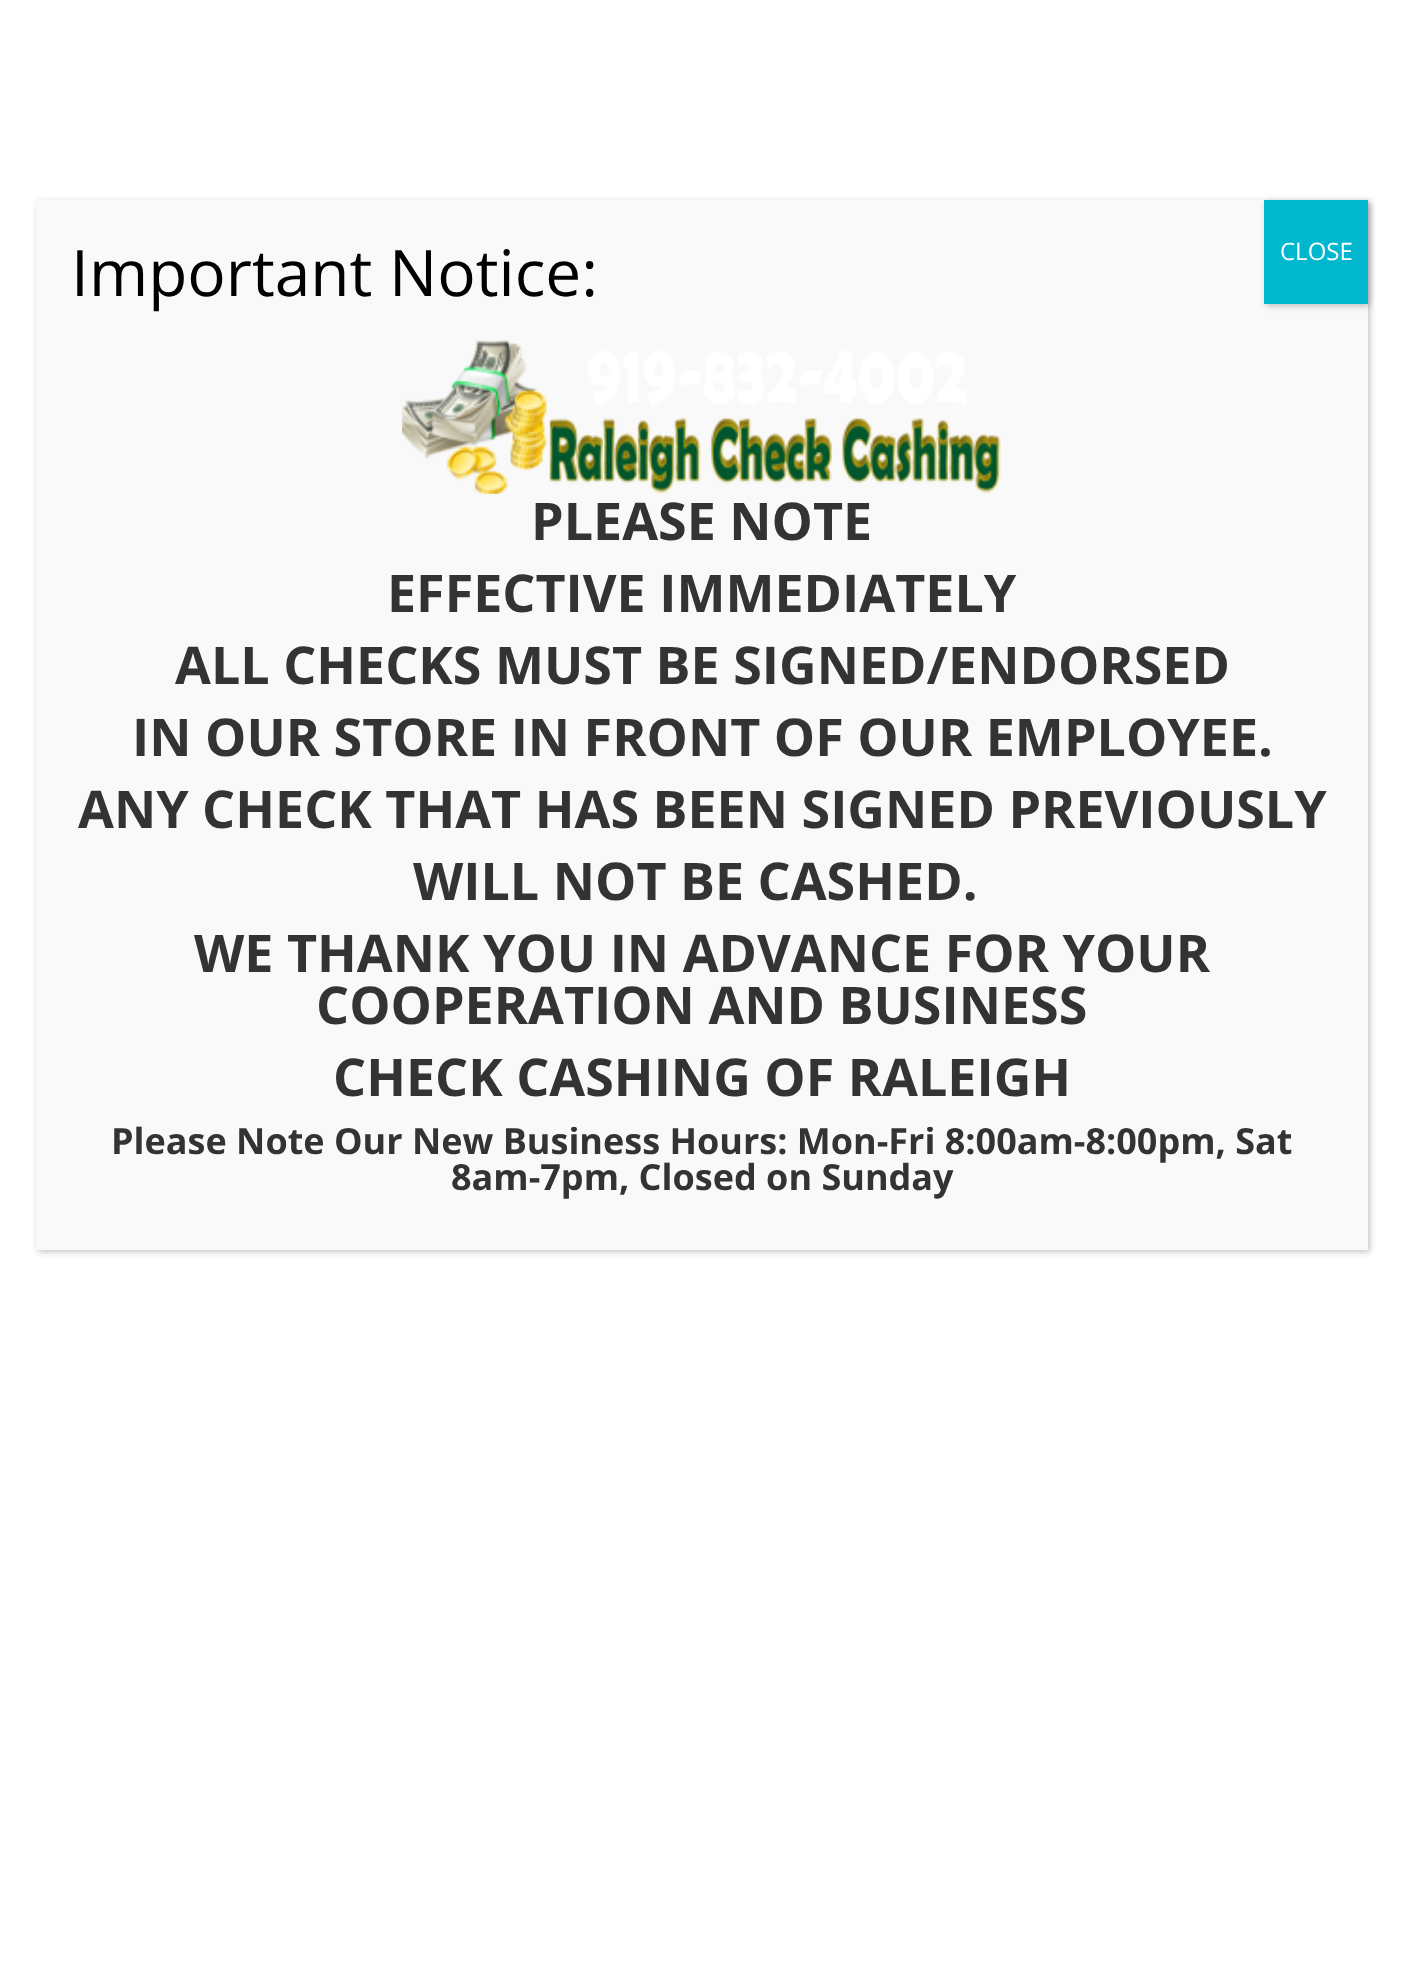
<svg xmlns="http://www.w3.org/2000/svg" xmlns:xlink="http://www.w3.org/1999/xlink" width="1403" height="1974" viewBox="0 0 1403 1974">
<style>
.cls-1{font:64px Open Sans;fill:#000000}
.cls-2{font:24px Open Sans;fill:#ffffff}
.cls-3{font:bold 52px Open Sans;fill:#333333}
.cls-4{font:bold 36px Open Sans;fill:#333333}
</style>
<rect width="100%" height="100%" fill="#ffffff"/>
<rect fill="#020202" fill-opacity="0.23" filter="blur(3px)" x="38" y="202" width="1332" height="1050"/>
<rect fill="#f9f9f9" x="36" y="200" width="1332" height="1050"/>
<rect fill="#020202" fill-opacity="0.23" filter="blur(3px)" x="1266" y="202" width="104" height="104"/>
<rect fill="#00b7cd" x="1264" y="200" width="104" height="104"/>
<image xlink:href="image0.png" x="402" y="340" width="599" height="154"/>
<text class="cls-1" x="71" y="296">Important Notice:</text>
<text class="cls-2" x="1280" y="260">CLOSE</text>
<text class="cls-3" x="531" y="540">PLEASE NOTE</text>
<text class="cls-3" x="387" y="612">EFFECTIVE IMMEDIATELY</text>
<text class="cls-3" x="175" y="684">ALL CHECKS MUST BE SIGNED/ENDORSED</text>
<text class="cls-3" x="132" y="756">IN OUR STORE IN FRONT OF OUR EMPLOYEE.</text>
<text class="cls-3" x="78" y="828">ANY CHECK THAT HAS BEEN SIGNED PREVIOUSLY</text>
<text class="cls-3" x="413" y="900">WILL NOT BE CASHED.</text>
<text class="cls-3" x="194" y="972">WE THANK YOU IN ADVANCE FOR YOUR</text>
<text class="cls-3" x="316" y="1024">COOPERATION AND BUSINESS</text>
<text class="cls-3" x="333" y="1096">CHECK CASHING OF RALEIGH</text>
<text class="cls-4" x="111" y="1154">Please Note Our New Business Hours: Mon-Fri 8:00am-8:00pm, Sat</text>
<text class="cls-4" x="451" y="1190">8am-7pm, Closed on Sunday</text>
</svg>
